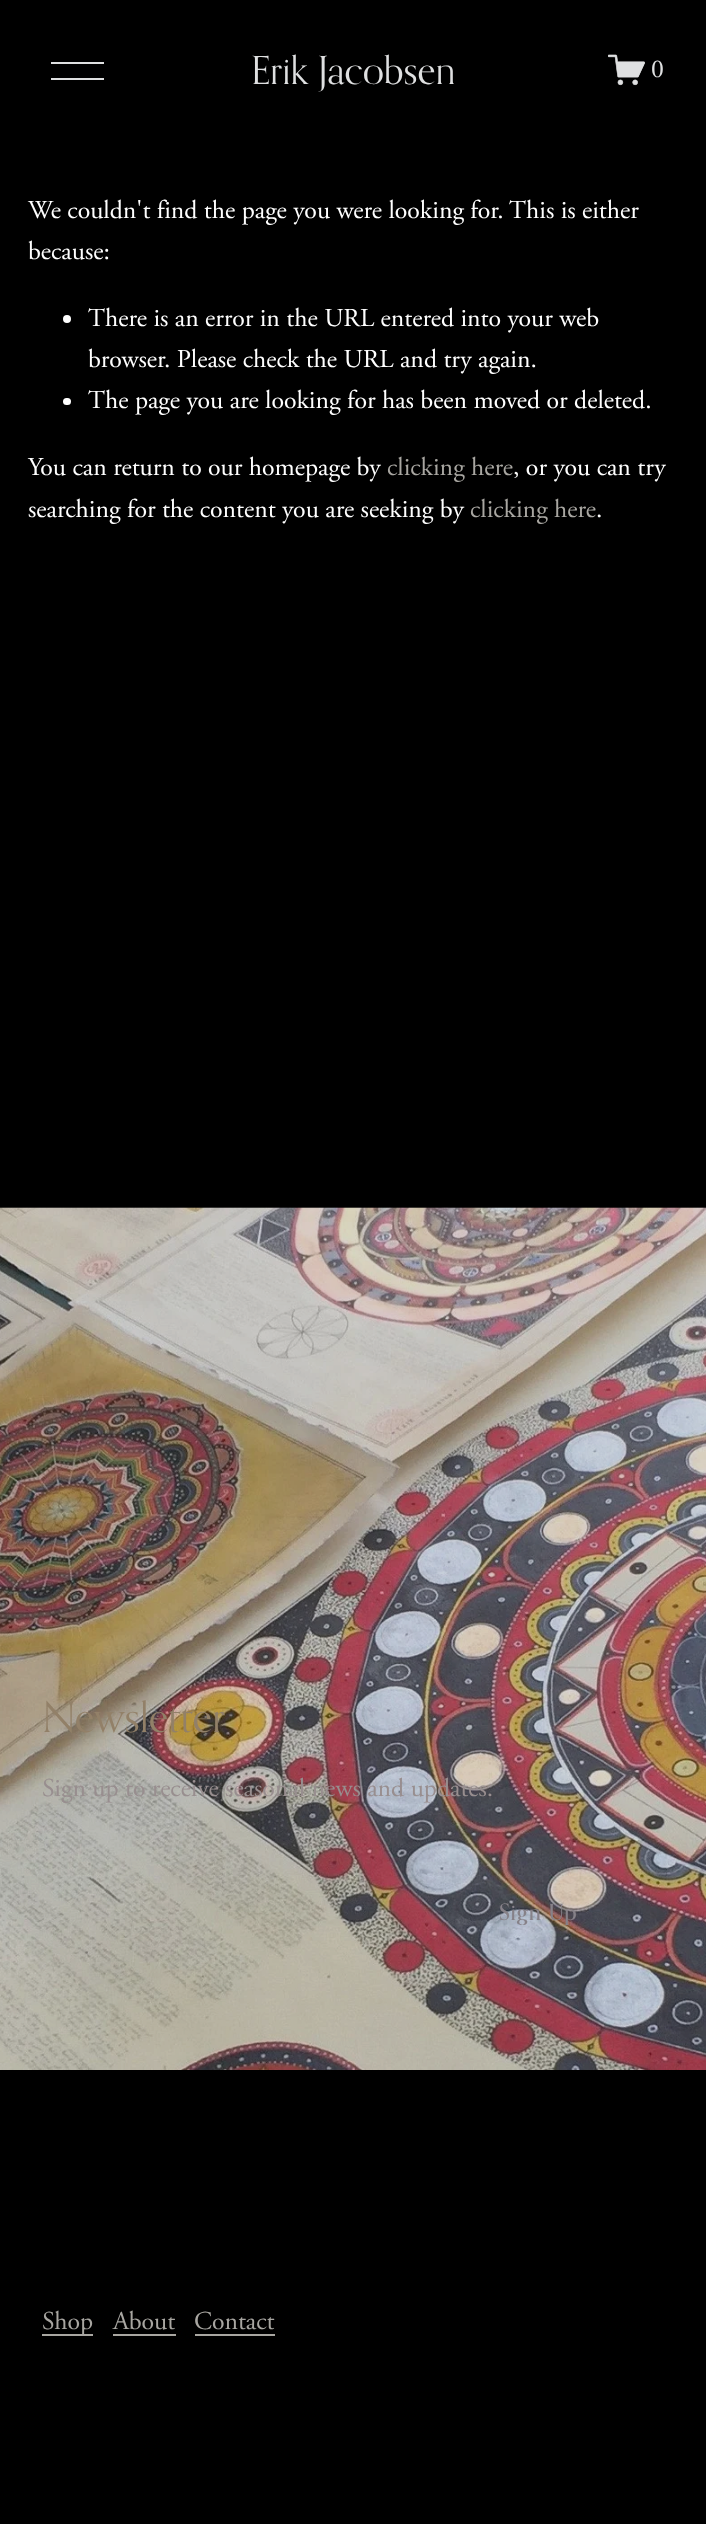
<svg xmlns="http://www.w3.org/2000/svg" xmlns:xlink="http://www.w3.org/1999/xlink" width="706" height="2524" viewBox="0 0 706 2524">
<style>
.cls-1{font:38.75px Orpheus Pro;fill:#dfe0e1}
.cls-2{font:25.75px Adobe Garamond;fill:#dfe0e1}
.cls-3{font:25.75px Adobe Garamond;fill:#ffffff}
.cls-4{font:25.75px Adobe Garamond;fill:#a8a6a1}
.cls-5{font:42px Orpheus Pro;fill:#928068}
.cls-6{font:25.75px Adobe Garamond;fill:#988e8f}
.cls-7{font:500 22.5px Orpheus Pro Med;letter-spacing:1px;fill:#868188}
</style>
<rect width="100%" height="100%" fill="#000000"/>
<rect fill="#dfe0e1" x="51" y="62" width="53" height="2"/>
<rect fill="#dfe0e1" x="51" y="78" width="53" height="2"/>
<image xlink:href="image0.png" x="608" y="54" width="37" height="32"/>
<circle fill="#ffffff" cx="67" cy="319" r="4"/>
<rect fill="#ffffff" x="63" y="398" width="8" height="7" rx="3.5"/>
<image xlink:href="image1.png" x="0" y="1207" width="706" height="863"/>
<rect fill="#a8a6a1" x="42" y="2334" width="51" height="2"/>
<rect fill="#a8a6a1" x="113" y="2334" width="63" height="2"/>
<rect fill="#a8a6a1" x="195" y="2334" width="80" height="2"/>
<text class="cls-1" x="251" y="84">Erik Jacobsen</text>
<text class="cls-2" x="651" y="77">0</text>
<text class="cls-3"><tspan x="28" y="218">We couldn't find the page you were looking for. This is either</tspan><tspan x="28" y="259">because:</tspan></text>
<text class="cls-3"><tspan x="88" y="326">There is an error in the URL entered into your web</tspan><tspan x="88" y="367">browser. Please check the URL and try again.</tspan><tspan x="88" y="408">The page you are looking for has been moved or deleted.</tspan></text>
<text class="cls-3" x="28" y="475">You can return to our homepage by</text>
<text class="cls-4" x="387" y="475">clicking here</text>
<text class="cls-3" x="513" y="475">, or you can try</text>
<text class="cls-3" x="28" y="517">searching for the content you are seeking by</text>
<text class="cls-4" x="470" y="517">clicking here</text>
<text class="cls-3" x="596" y="517">.</text>
<text class="cls-5" x="42" y="1732">Newsletter</text>
<text class="cls-6" x="42" y="1796">Sign up to receive seasonal news and updates.</text>
<text class="cls-7" x="499" y="1920">Sign Up</text>
<text class="cls-4" x="42" y="2329">Shop</text>
<text class="cls-4" x="113" y="2329">About</text>
<text class="cls-4" x="194" y="2329">Contact</text>
</svg>
